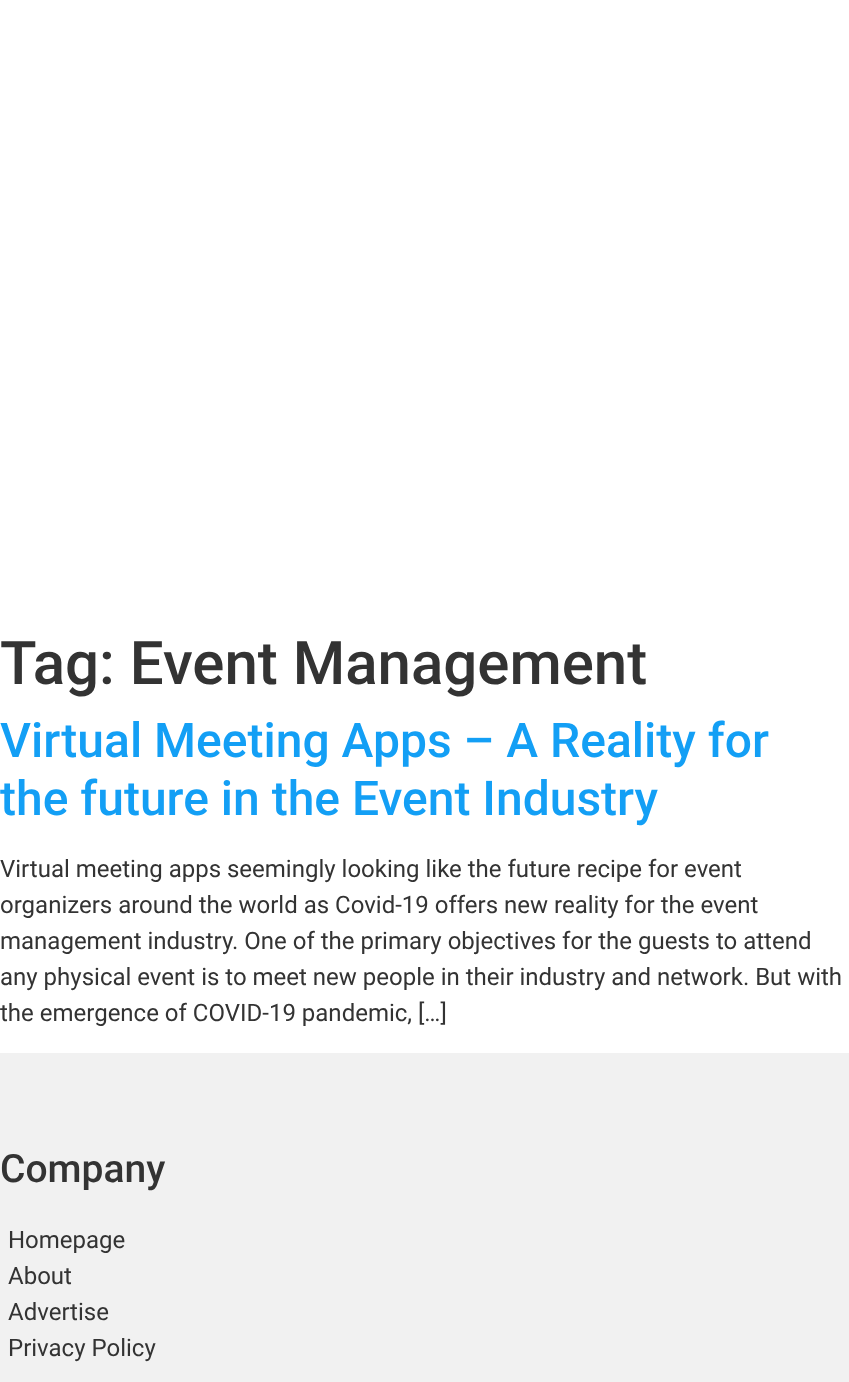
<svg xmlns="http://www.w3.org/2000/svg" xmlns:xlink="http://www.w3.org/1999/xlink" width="849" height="1382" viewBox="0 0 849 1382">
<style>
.cls-1{font:500 60px Roboto;fill:#333333}
.cls-2{font:500 48px Roboto;fill:#139ff5}
.cls-3{font:24px Roboto;fill:#333333}
.cls-4{font:500 39px Roboto;fill:#333333}
</style>
<rect width="100%" height="100%" fill="#ffffff"/>
<rect fill="#f1f1f1" x="0" y="1053" width="849" height="329"/>
<text class="cls-1" x="0" y="684">Tag: Event Management</text>
<text class="cls-2"><tspan x="0" y="757">Virtual Meeting Apps – A Reality for</tspan><tspan x="0" y="815">the future in the Event Industry</tspan></text>
<text class="cls-3"><tspan x="0" y="877">Virtual meeting apps seemingly looking like the future recipe for event</tspan><tspan x="0" y="913">organizers around the world as Covid-19 offers new reality for the event</tspan><tspan x="0" y="949">management industry. One of the primary objectives for the guests to attend</tspan><tspan x="0" y="985">any physical event is to meet new people in their industry and network. But with</tspan><tspan x="0" y="1021">the emergence of COVID-19 pandemic, […]</tspan></text>
<text class="cls-4" x="0" y="1182">Company</text>
<text class="cls-3"><tspan x="8" y="1248">Homepage</tspan><tspan x="8" y="1284">About</tspan><tspan x="8" y="1320">Advertise</tspan><tspan x="8" y="1356">Privacy Policy</tspan></text>
</svg>
